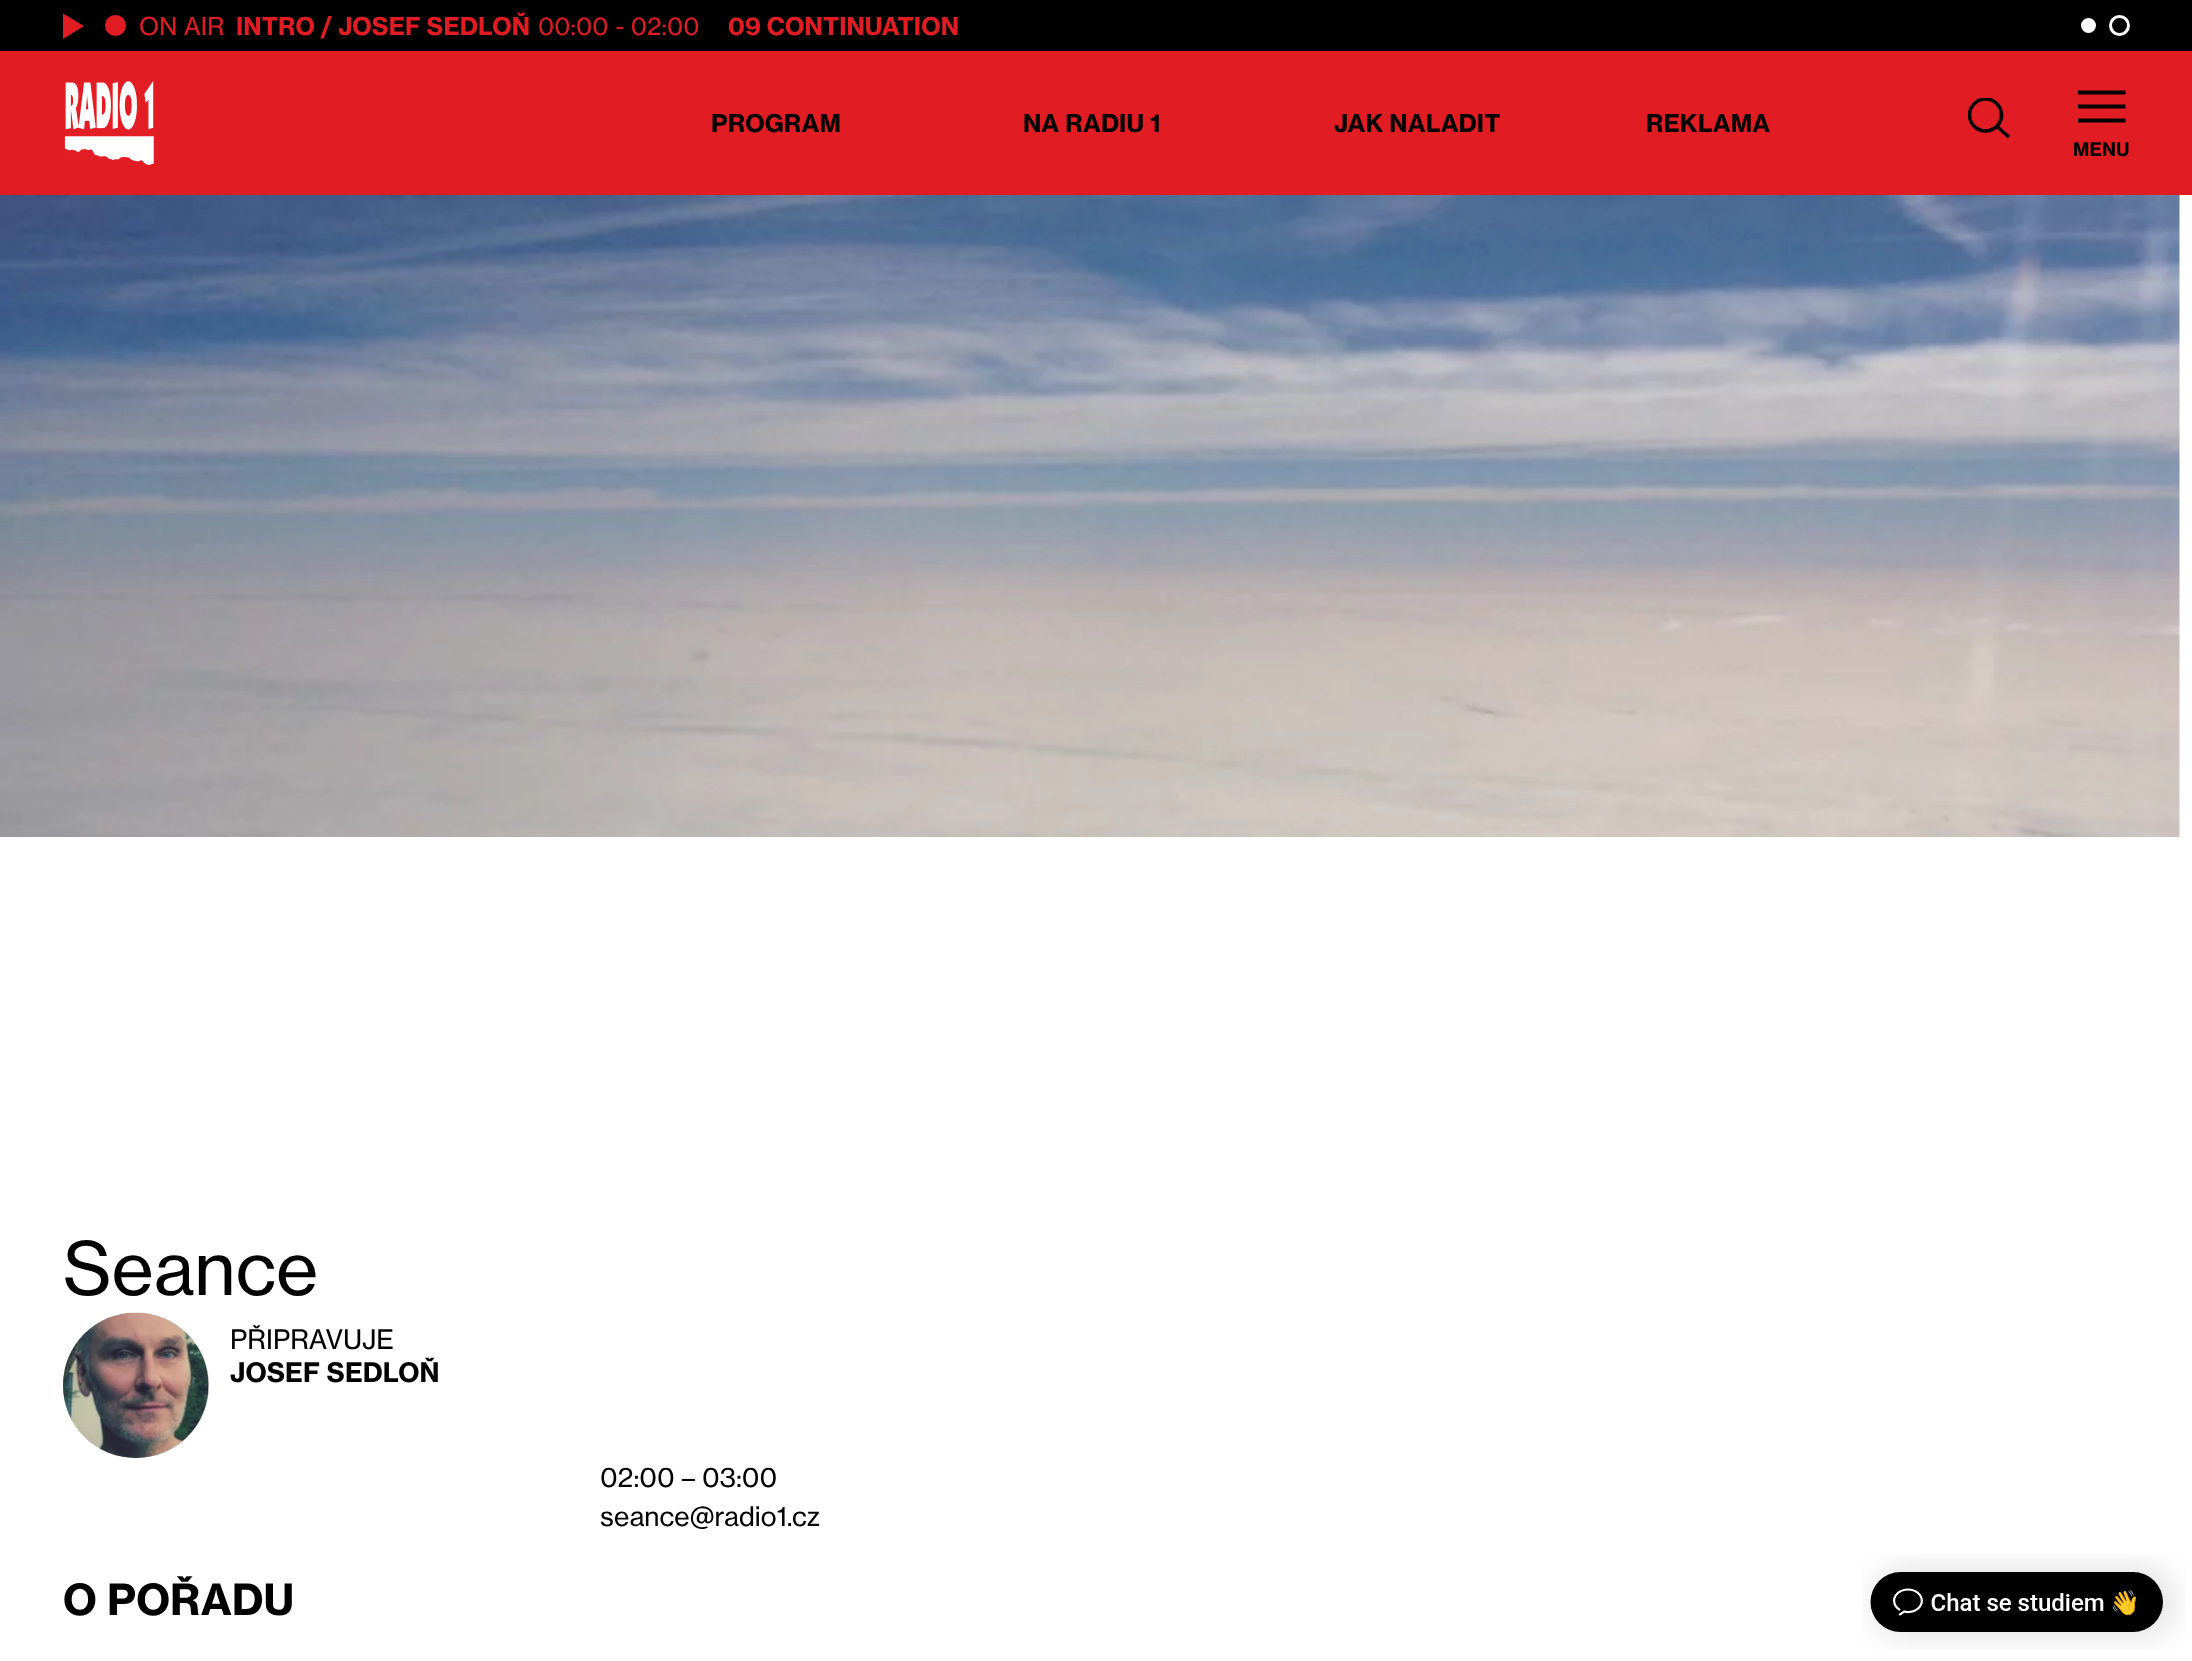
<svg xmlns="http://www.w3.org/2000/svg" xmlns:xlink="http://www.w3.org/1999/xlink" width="2192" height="1661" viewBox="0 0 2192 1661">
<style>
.cls-1{font:24.25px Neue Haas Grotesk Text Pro;letter-spacing:0.1px;fill:#e21c23}
.cls-2{font:bold 24.25px Neue Haas Grotesk Text Pro;letter-spacing:0.1px;fill:#e21c23}
.cls-3{font:bold 24.25px Neue Haas Grotesk Text Pro;letter-spacing:0.1px;fill:#000000}
.cls-4{font:bold 18.5px Neue Haas Grotesk Text Pro;letter-spacing:0.1px;fill:#000000}
.cls-5{font:72.5px Neue Haas Grotesk Text Pro;fill:#000000}
.cls-6{font:26.5px Neue Haas Grotesk Text Pro;letter-spacing:0.1px;fill:#000000}
.cls-7{font:bold 26.5px Neue Haas Grotesk Text Pro;letter-spacing:0.1px;fill:#000000}
.cls-8{font:26.5px Neue Haas Grotesk Text Pro;fill:#000000}
.cls-9{font:bold 42.25px Neue Haas Grotesk Text Pro;fill:#000000}
</style>
<defs>
<clipPath id="clip1"><rect x="1968" y="98" width="42" height="40"/></clipPath>
<clipPath id="clip2"><rect x="2078" y="86" width="48" height="42"/></clipPath>
</defs>
<rect width="100%" height="100%" fill="#ffffff"/>
<rect fill="#000000" x="0" y="0" width="2192" height="51"/>
<path fill="#e21c23" d="M84 26L63 39V13.5Z"/>
<circle fill="#e21c23" cx="115.5" cy="25.5" r="10.5"/>
<circle fill="#ffffff" stroke="#000000" stroke-width="3" cx="2088.5" cy="25.5" r="9"/>
<circle fill="none" stroke="#ffffff" stroke-width="3" cx="2119.5" cy="25.5" r="9"/>
<rect fill="#e21c23" x="0" y="51" width="2192" height="144"/>
<image xlink:href="image0.png" x="64" y="81" width="90" height="84"/>
<g clip-path="url(#clip1)">
<circle fill="none" stroke="#000000" stroke-width="3.6" cx="1985.5" cy="115" r="16"/>
</g>
<path fill="none" stroke="#000000" stroke-width="3.6" d="M1997.5 127L2009 137"/>
<g clip-path="url(#clip2)">
<path fill="none" stroke="#000000" stroke-width="3.8" d="M2077.5 92.5H2125.5M2077.5 106.5H2125.5M2077.5 120.5H2125.5"/>
</g>
<image xlink:href="image1.png" x="0" y="195" width="2180" height="642"/>
<rect fill="#c0bcc1" x="63" y="1313" width="146" height="145" rx="72.5"/>
<image xlink:href="image2.png" x="63" y="1312" width="146" height="146"/>
<image xlink:href="image3.png" x="1862" y="1554" width="324" height="96"/>
<text class="cls-1" x="139" y="35">ON AIR</text>
<text class="cls-2" x="236" y="35">INTRO / JOSEF SEDLOŇ</text>
<text class="cls-1" x="538" y="35">00:00 - 02:00</text>
<text class="cls-2" x="728" y="35">09 CONTINUATION</text>
<text class="cls-3" x="711" y="132">PROGRAM</text>
<text class="cls-3" x="1023" y="132">NA RADIU 1</text>
<text class="cls-3" x="1334" y="132">JAK NALADIT</text>
<text class="cls-3" x="1646" y="132">REKLAMA</text>
<text class="cls-4" x="2073" y="156">MENU</text>
<text class="cls-5" x="63" y="1295">Seance</text>
<text class="cls-6" x="230" y="1349">PŘIPRAVUJE</text>
<text class="cls-7" x="230" y="1382">JOSEF SEDLOŇ</text>
<text class="cls-8"><tspan x="600" y="1487">02:00 – 03:00</tspan><tspan x="600" y="1526">seance@radio1.cz</tspan></text>
<text class="cls-9" x="63" y="1615">O POŘADU</text>
</svg>
